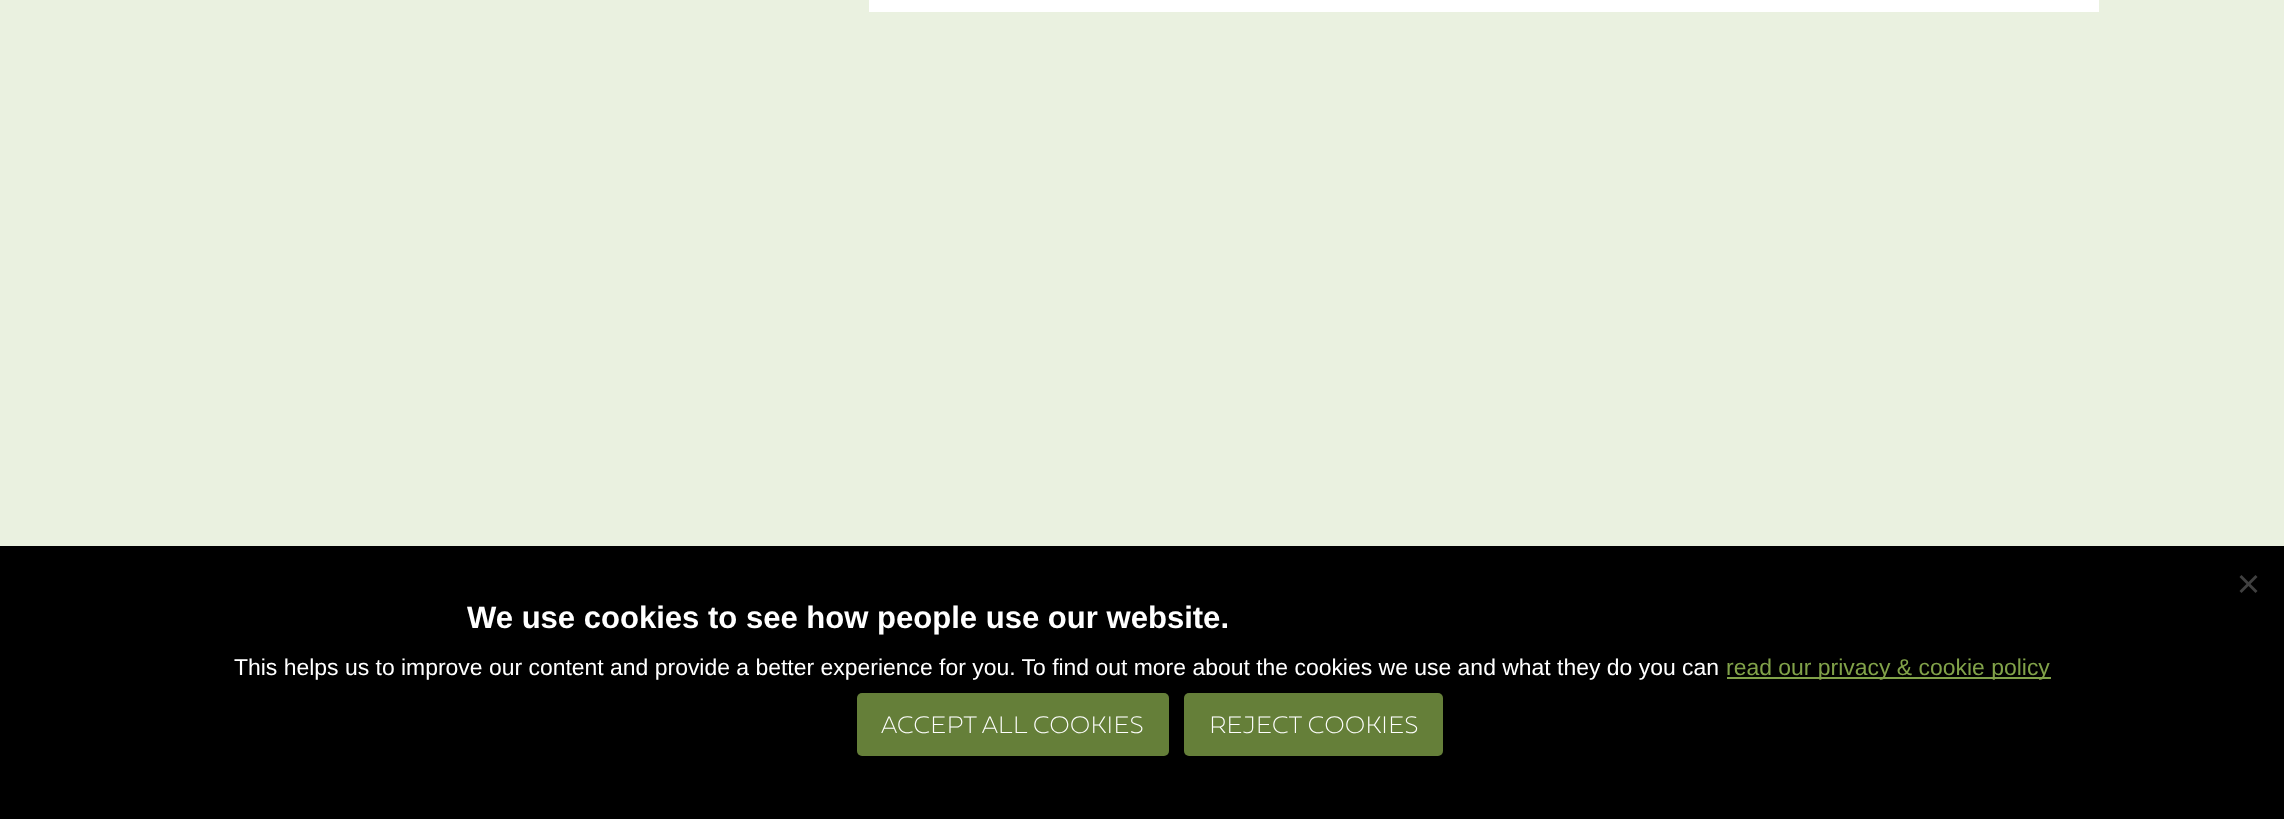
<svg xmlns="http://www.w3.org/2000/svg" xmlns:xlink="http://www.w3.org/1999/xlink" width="2284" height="819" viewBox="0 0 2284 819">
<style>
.cls-1{font:bold 31.05px Liberation Sans;fill:#ffffff}
.cls-2{font:22.95px Liberation Sans;fill:#ffffff}
.cls-3{font:22.95px Liberation Sans;fill:#81a249}
.cls-4{font:200 25px 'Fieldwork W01';fill:#ffffff}
</style>
<rect width="100%" height="100%" fill="#eaf1e0"/>
<rect fill="#ffffff" x="869" y="0" width="1230" height="12"/>
<rect fill="#000000" x="0" y="546" width="2284" height="273"/>
<path fill="#404040" d="M2255.5 575L2257.5 577L2241.5 593L2239.5 591Z"/>
<path fill="#404040" d="M2239.5 577L2241.5 575L2257.5 591L2255.5 593Z"/>
<rect fill="#81a249" x="1727" y="677" width="324" height="2"/>
<rect fill="#657f39" x="857" y="693" width="312" height="63" rx="5"/>
<rect fill="#657f39" x="1184" y="693" width="259" height="63" rx="5"/>
<text class="cls-1" x="467" y="628">We use cookies to see how people use our website.</text>
<text class="cls-2" x="234" y="675">This helps us to improve our content and provide a better experience for you. To find out more about the cookies we use and what they do you can</text>
<text class="cls-3" x="1726" y="675">read our privacy &amp; cookie policy</text>
<text class="cls-4" x="881" y="733">ACCEPT ALL COOKIES</text>
<text class="cls-4" x="1209" y="733">REJECT COOKIES</text>
</svg>
